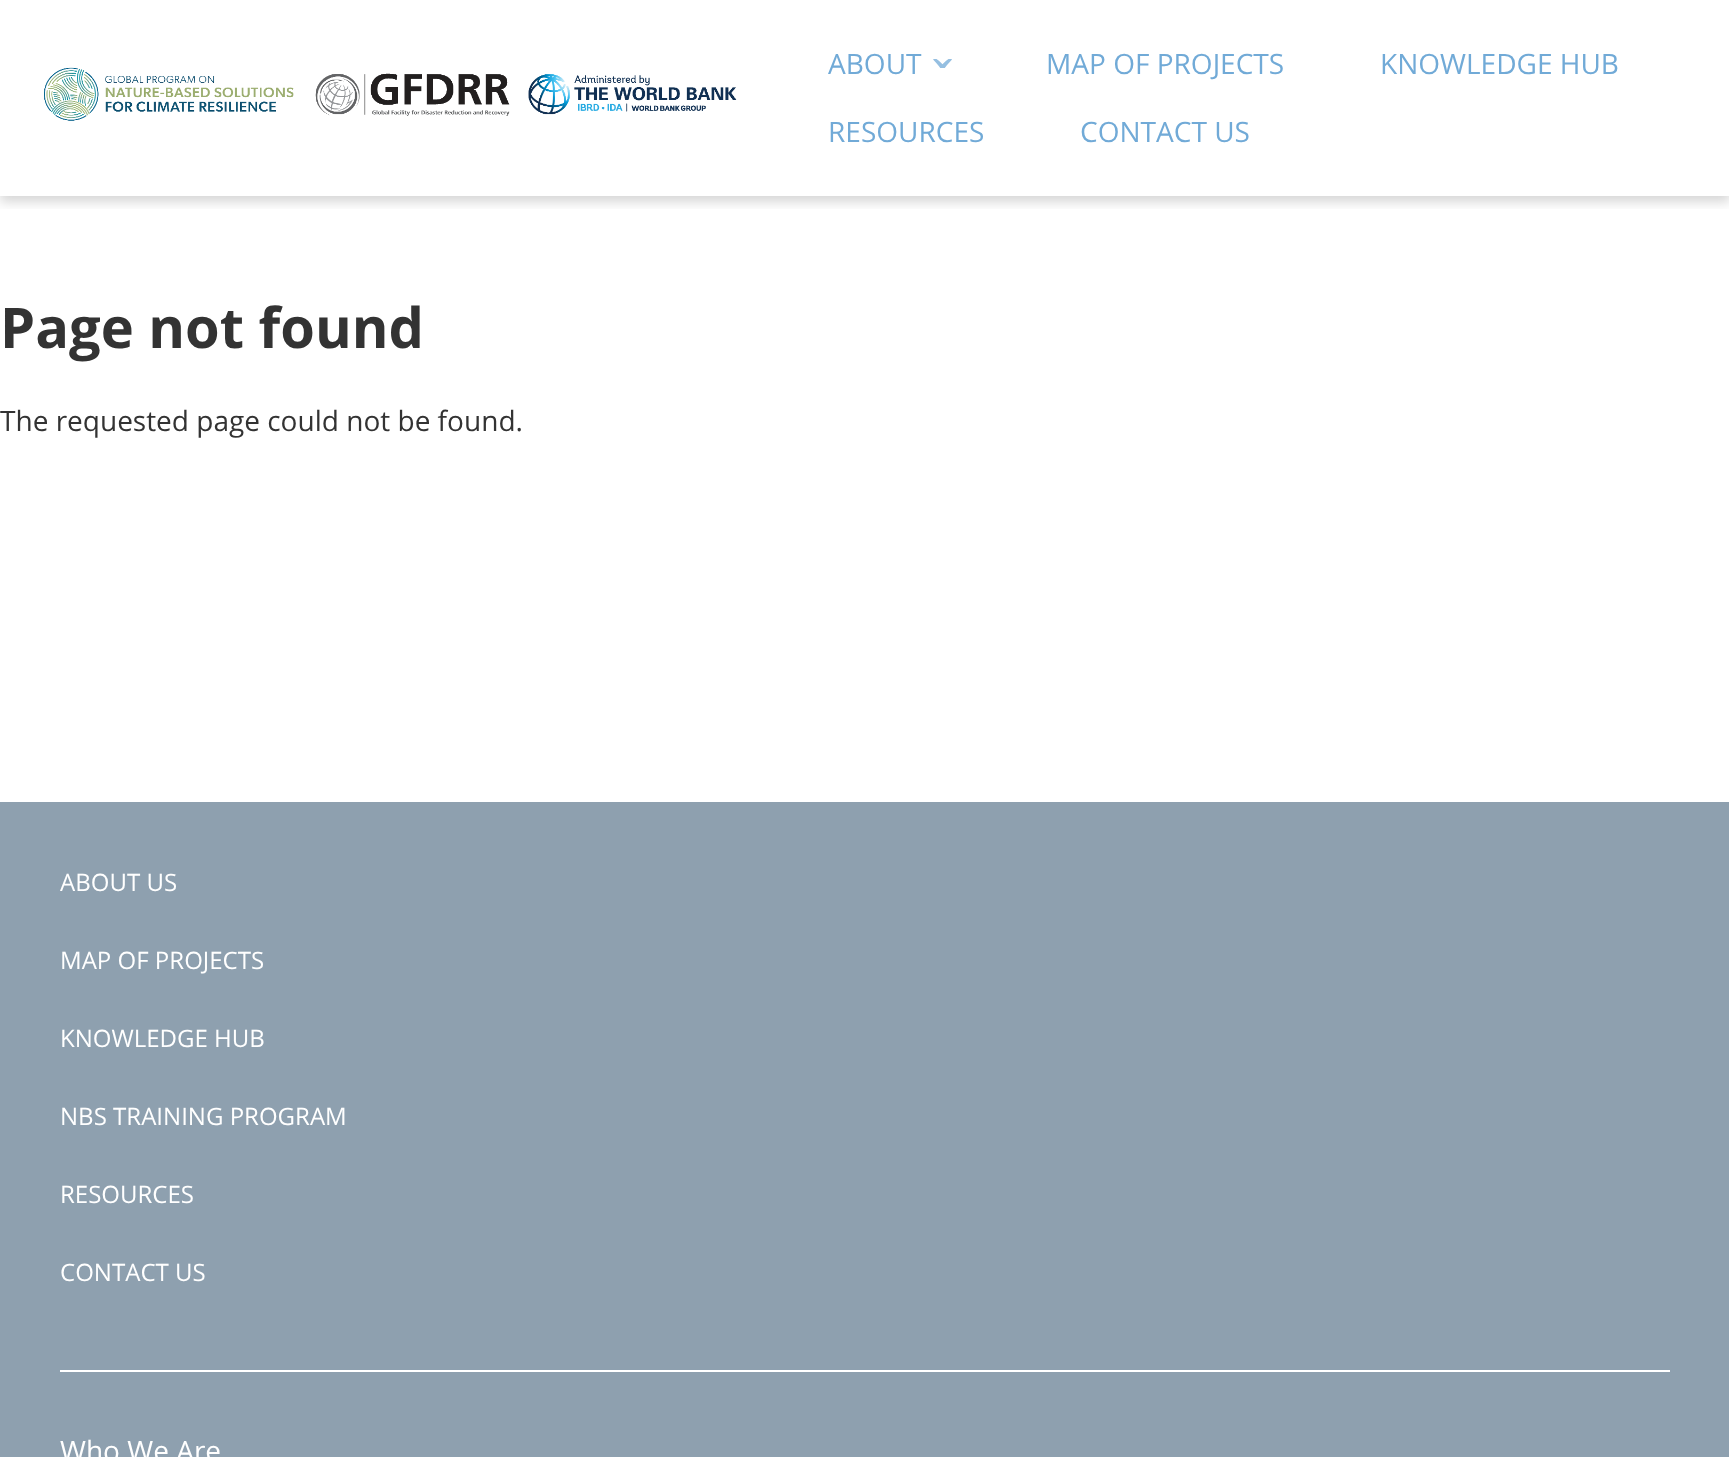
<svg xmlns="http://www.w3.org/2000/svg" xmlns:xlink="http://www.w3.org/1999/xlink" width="1729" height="1457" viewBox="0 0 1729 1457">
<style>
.cls-1{font:28px Open Sans;fill:#71aad7}
.cls-2{font:56px Open Sans;fill:#95bfe1}
.cls-3{font:bold 56px Open Sans;fill:#333333}
.cls-4{font:28px Open Sans;fill:#333333}
.cls-5{font:24px Open Sans;fill:#ffffff}
.cls-6{font:28px Open Sans;fill:#ffffff}
</style>
<defs>
<clipPath id="clip1"><rect x="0" y="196" width="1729" height="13"/></clipPath>
</defs>
<rect width="100%" height="100%" fill="#ffffff"/>
<g clip-path="url(#clip1)">
<rect fill="#000000" fill-opacity="0.16" filter="blur(6px)" x="0" y="6" width="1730" height="196"/>
</g>
<image xlink:href="image0.png" x="44" y="67" width="693" height="54"/>
<rect fill="#8ea0af" x="0" y="802" width="1729" height="655"/>
<rect fill="#ffffff" x="60" y="1370" width="1610" height="2"/>
<text class="cls-1" x="828" y="74">ABOUT</text>
<text class="cls-2" x="926" y="102">ˇ</text>
<text class="cls-1" x="1046" y="74">MAP OF PROJECTS</text>
<text class="cls-1" x="1380" y="74">KNOWLEDGE HUB</text>
<text class="cls-1" x="828" y="142">RESOURCES</text>
<text class="cls-1" x="1080" y="142">CONTACT US</text>
<text class="cls-3" x="0" y="348">Page not found</text>
<text class="cls-4" x="0" y="431">The requested page could not be found.</text>
<text class="cls-5" x="60" y="891">ABOUT US</text>
<text class="cls-5" x="60" y="969">MAP OF PROJECTS</text>
<text class="cls-5" x="60" y="1047">KNOWLEDGE HUB</text>
<text class="cls-5" x="60" y="1125">NBS TRAINING PROGRAM</text>
<text class="cls-5" x="60" y="1203">RESOURCES</text>
<text class="cls-5" x="60" y="1281">CONTACT US</text>
<text class="cls-6" x="60" y="1461">Who We Are</text>
</svg>
